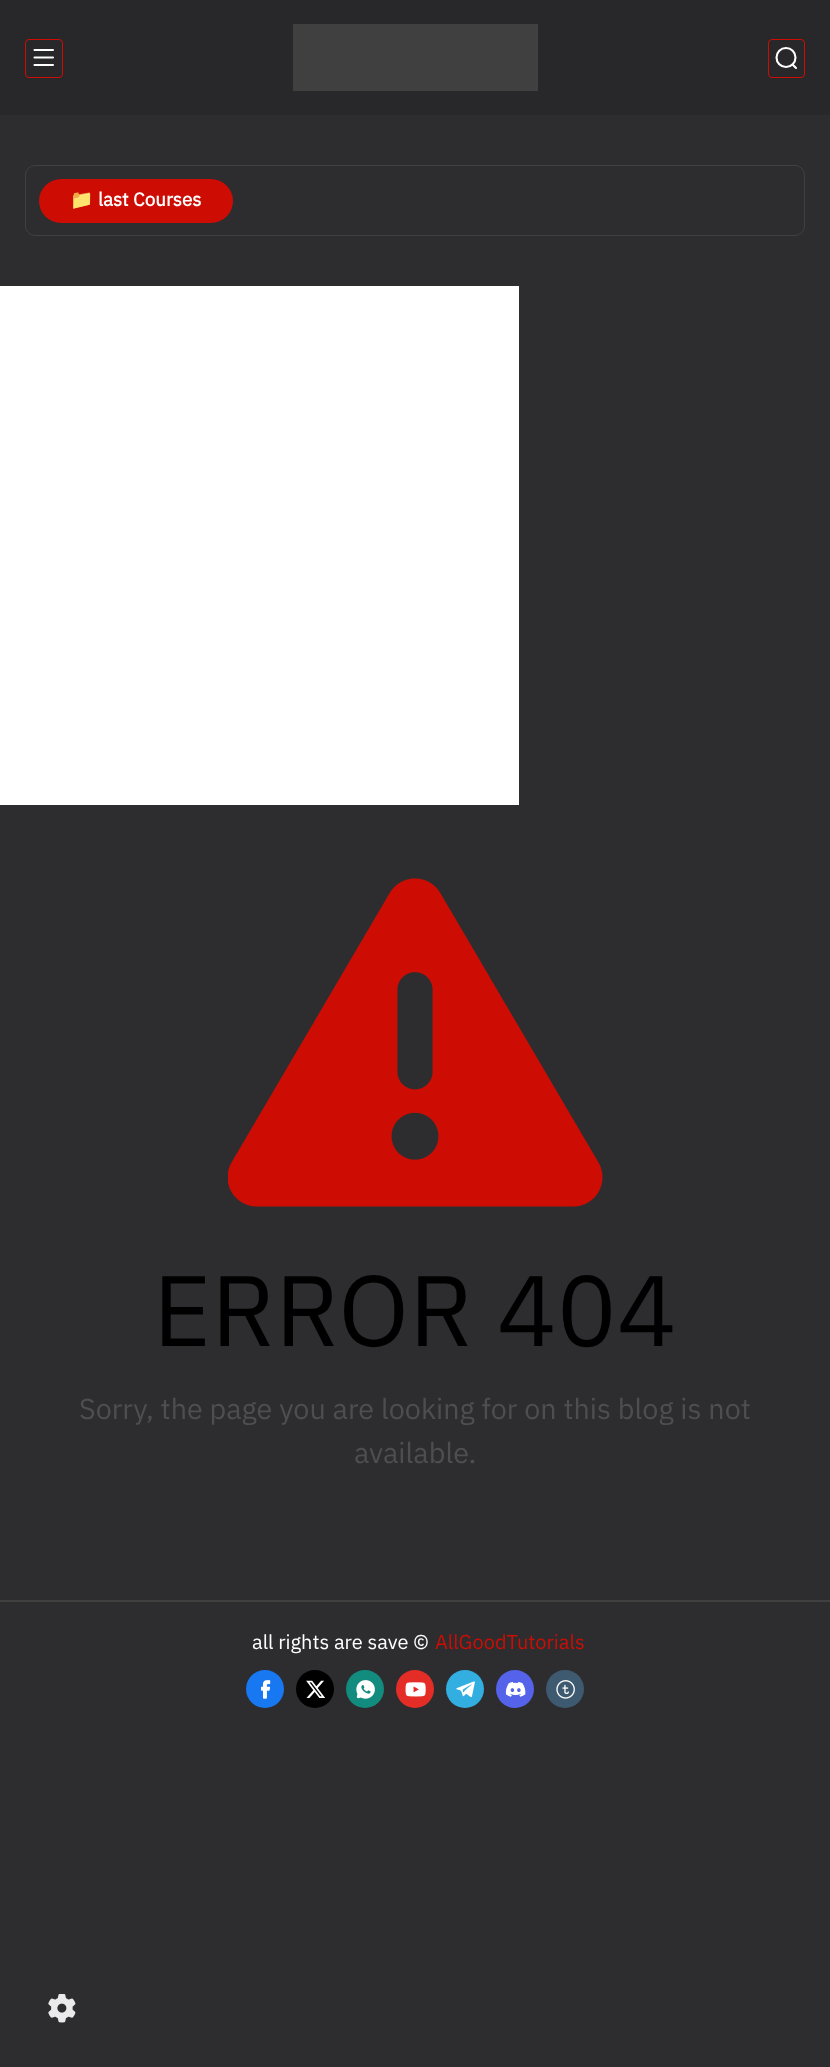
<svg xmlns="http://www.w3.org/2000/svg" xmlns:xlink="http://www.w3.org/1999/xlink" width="830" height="2067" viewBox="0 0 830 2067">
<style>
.cls-1{font:bold 18.75px Noto Color Emoji;fill:#ffffff}
.cls-2{font:bold 18.75px IBM Plex Sans Arabic;fill:#ffffff}
.cls-3{font:100px IBM Plex Sans Arabic;fill:#000000}
.cls-4{font:28.75px IBM Plex Sans Arabic;fill:#4e4e4e}
.cls-5{font:20px IBM Plex Sans Arabic;fill:#ffffff}
.cls-6{font:20px IBM Plex Sans Arabic;fill:#cd0d03}
</style>
<rect width="100%" height="100%" fill="#2d2d30"/>
<rect fill="#28282b" x="0" y="0" width="830" height="115"/>
<rect fill="none" stroke="#cd0d03" x="25.5" y="39.5" width="37" height="38" rx="3.5"/>
<path fill="none" stroke="#ffffff" stroke-width="2.1" stroke-linecap="round" stroke-linejoin="round" d="M34.5 57.5H53M34.5 50H53M34.5 65H53"/>
<rect fill="#404040" x="293" y="24" width="245" height="67"/>
<rect fill="none" stroke="#cd0d03" x="768.5" y="39.5" width="36" height="38" rx="3.5"/>
<circle fill="none" stroke="#ffffff" stroke-width="2.1" cx="786" cy="57.5" r="9.5"/>
<path fill="none" stroke="#ffffff" stroke-width="2.1" stroke-linecap="round" stroke-linejoin="round" d="M792.5 64.5L796 68"/>
<rect fill="none" stroke="#404040" x="25.5" y="165.5" width="779" height="70" rx="9.5"/>
<rect fill="#cd0d03" x="39" y="179" width="194" height="44" rx="22"/>
<rect fill="#ffffff" x="0" y="286" width="519" height="519"/>
<image xlink:href="image0.png" x="228" y="878" width="375" height="329"/>
<rect fill="#404040" x="0" y="1600" width="830" height="2"/>
<circle fill="#1778f2" cx="265" cy="1689" r="19"/>
<image xlink:href="image1.png" x="260" y="1680" width="11" height="19"/>
<circle fill="#000000" cx="315" cy="1689" r="19"/>
<image xlink:href="image2.png" x="306" y="1680" width="20" height="18"/>
<circle fill="#128c7e" cx="365" cy="1689" r="19"/>
<image xlink:href="image3.png" x="356" y="1680" width="19" height="19"/>
<circle fill="#e52d27" cx="415" cy="1689" r="19"/>
<image xlink:href="image4.png" x="405" y="1682" width="21" height="15"/>
<circle fill="#32aee1" cx="465" cy="1689" r="19"/>
<image xlink:href="image5.png" x="456" y="1681" width="19" height="17"/>
<circle fill="#5562ea" cx="515" cy="1689" r="19"/>
<image xlink:href="image6.png" x="505" y="1682" width="21" height="15"/>
<circle fill="#3e5a70" cx="565" cy="1689" r="19"/>
<image xlink:href="image7.png" x="556" y="1680" width="19" height="19"/>
<image xlink:href="image8.png" x="48" y="1994" width="28" height="29"/>
<text class="cls-1" x="70" y="206">📁</text>
<text class="cls-2" x="98" y="206">last Courses</text>
<text class="cls-3" x="153" y="1346">ERROR 404</text>
<text class="cls-4" x="79" y="1419">Sorry, the page you are looking for on this blog is not</text>
<text class="cls-4" x="354" y="1463">available.</text>
<text class="cls-5" x="252" y="1649">all rights are save ©</text>
<text class="cls-6" x="435" y="1649">AllGoodTutorials</text>
</svg>
